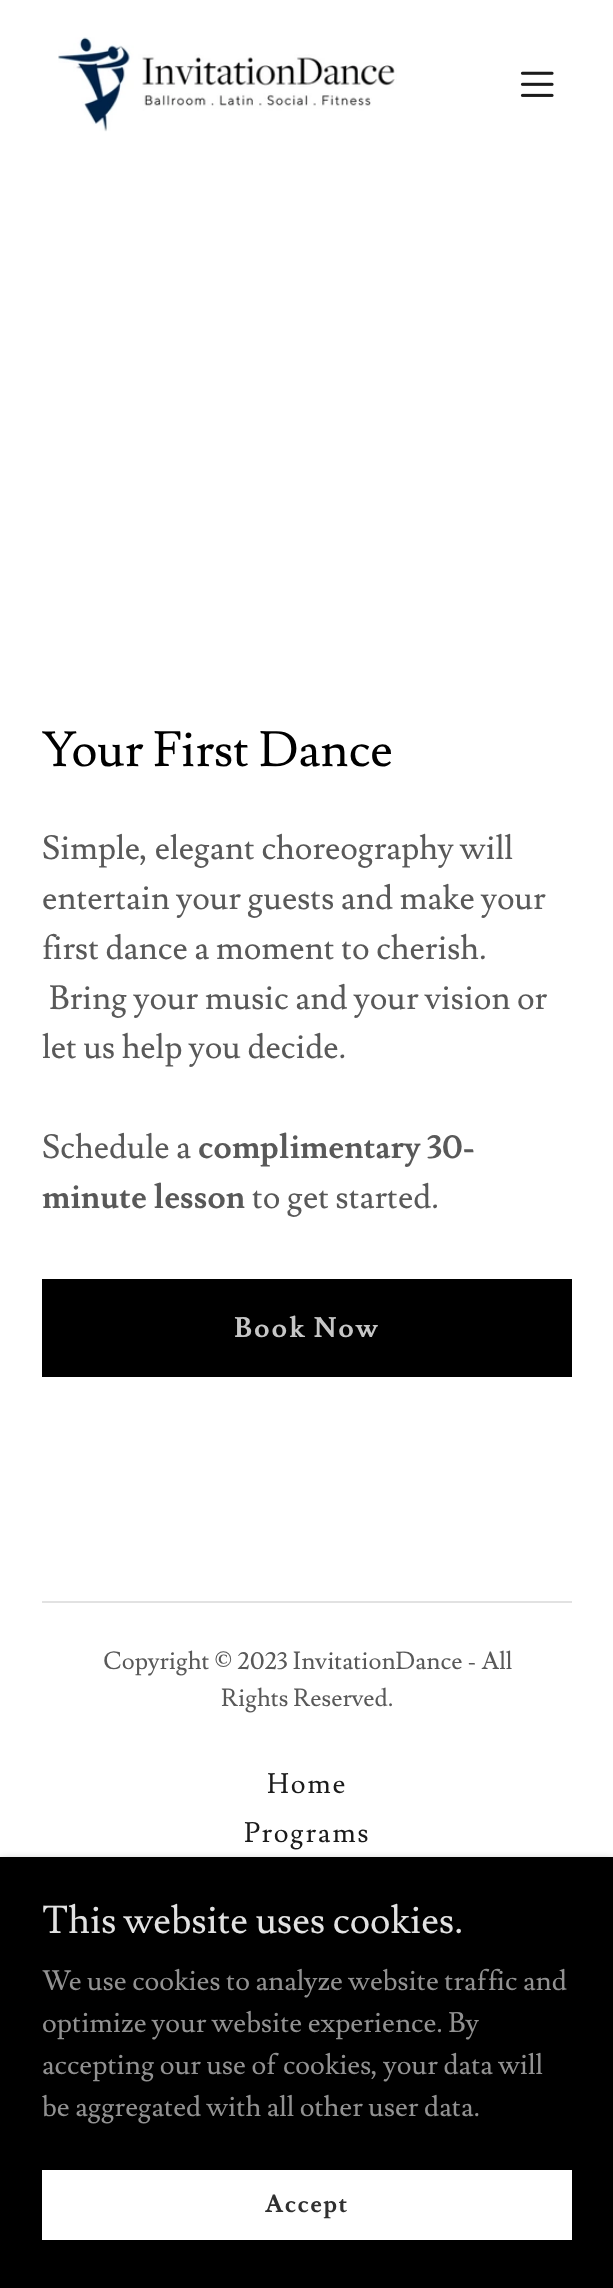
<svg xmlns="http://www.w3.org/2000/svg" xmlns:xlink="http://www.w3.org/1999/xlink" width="613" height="2288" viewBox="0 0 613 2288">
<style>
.cls-1{font:49px Lusitana;fill:#000000}
.cls-2{font:33.25px Lusitana;fill:#595959}
.cls-3{font:bold 33.25px Lusitana;fill:#595959}
.cls-4{font:bold 28px Lusitana;letter-spacing:1.75px;fill:#c6c6c6}
.cls-5{font:24.5px Lusitana;fill:#595959}
.cls-6{font:28px Lusitana;letter-spacing:1.75px;fill:#1b1b1b}
.cls-7{font:38.5px Lusitana;fill:#e2e2e2}
.cls-8{font:28px Lusitana;fill:#919191}
.cls-9{font:bold 24.5px Lusitana;letter-spacing:1.5px;fill:#303030}
</style>
<rect width="100%" height="100%" fill="#ffffff"/>
<image xlink:href="image0.png" x="58" y="37" width="339" height="95"/>
<image xlink:href="image1.png" x="520" y="71" width="34" height="26"/>
<rect fill="#000000" x="42" y="1279" width="530" height="98"/>
<rect fill="#e2e2e2" x="42" y="1601" width="530" height="2"/>
<rect fill="#000000" fill-opacity="0.3" filter="blur(5px)" x="0" y="1860" width="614" height="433"/>
<rect fill="#000000" x="0" y="1857" width="613" height="431"/>
<rect fill="#ffffff" x="42" y="2170" width="530" height="70"/>
<text class="cls-1" x="42" y="766">Your First Dance</text>
<text class="cls-2"><tspan x="42" y="859">Simple, elegant choreography will</tspan><tspan x="42" y="909">entertain your guests and make your</tspan><tspan x="42" y="959">first dance a moment to cherish.</tspan></text>
<text class="cls-2" x="49" y="1009">Bring your music and your vision or</text>
<text class="cls-2" x="42" y="1058">let us help you decide.</text>
<text class="cls-2" x="42" y="1158">Schedule a</text>
<text class="cls-3" x="198" y="1158">complimentary 30-</text>
<text class="cls-3" x="42" y="1208">minute lesson</text>
<text class="cls-2" x="252" y="1208">to get started.</text>
<text class="cls-4" x="234" y="1337">Book Now</text>
<text class="cls-5" x="103" y="1669">Copyright © 2023 InvitationDance - All</text>
<text class="cls-5" x="221" y="1706">Rights Reserved.</text>
<text class="cls-6" x="267" y="1793">Home</text>
<text class="cls-6" x="244" y="1842">Programs</text>
<text class="cls-7" x="42" y="1933">This website uses cookies.</text>
<text class="cls-8"><tspan x="42" y="1990">We use cookies to analyze website traffic and</tspan><tspan x="42" y="2032">optimize your website experience. By</tspan><tspan x="42" y="2074">accepting our use of cookies, your data will</tspan><tspan x="42" y="2116">be aggregated with all other user data.</tspan></text>
<text class="cls-9" x="265" y="2212">Accept</text>
</svg>
